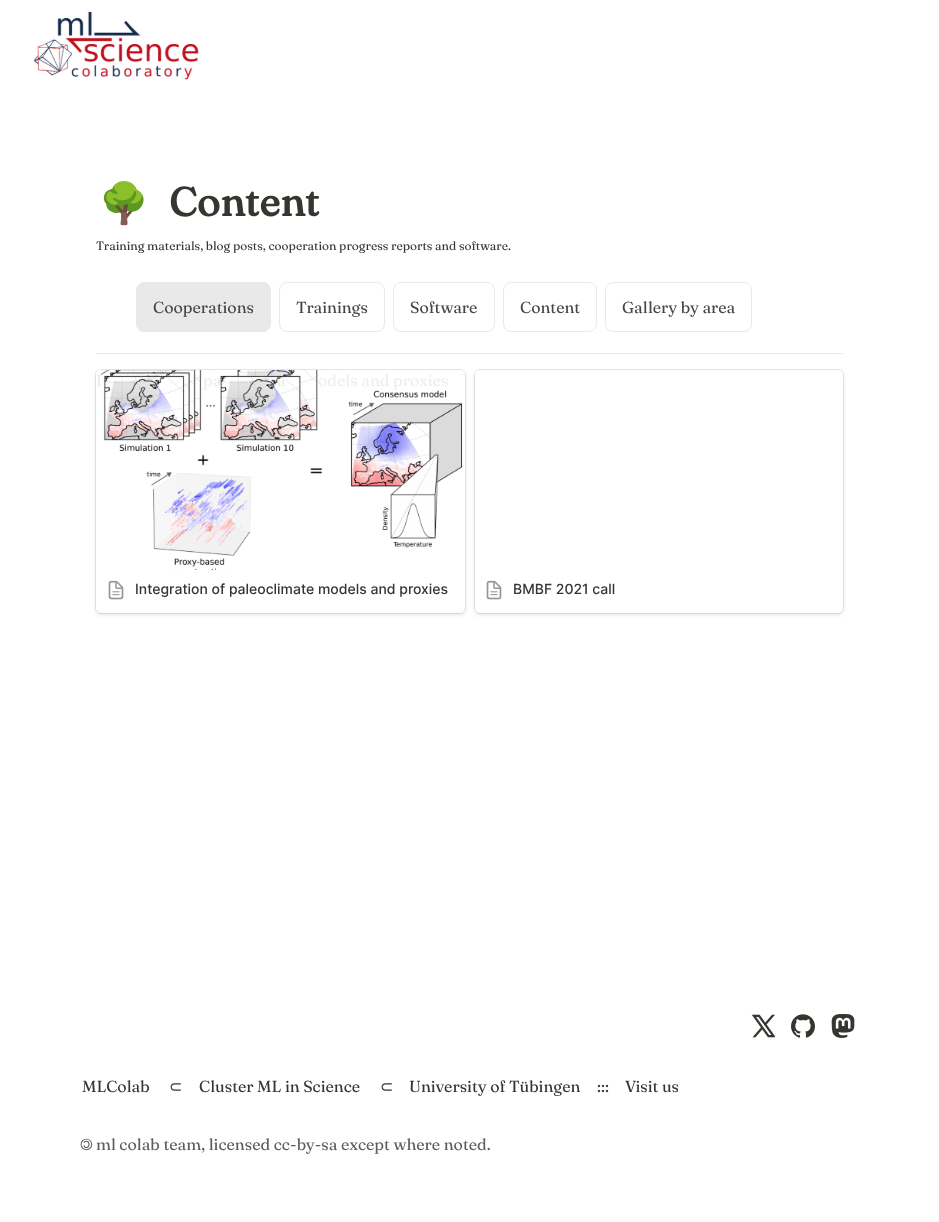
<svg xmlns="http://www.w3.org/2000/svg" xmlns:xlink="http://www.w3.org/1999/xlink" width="939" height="1222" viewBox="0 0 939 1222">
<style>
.cls-1{font:40px Noto Color Emoji;fill:#37352f}
.cls-2{font:bold 40px Fraunces;fill:#37352f}
.cls-3{font:12px Fraunces;fill:#37352f}
.cls-4{font:16px Fraunces;fill:#464646}
.cls-5{font:16px Fraunces;fill:#ededee}
.cls-6{font:500 14px Inter;fill:#37352f}
.cls-7{font:16px Fraunces;fill:#37352f}
.cls-8{font:16px DejaVu Sans;fill:#37352f}
.cls-9{font:16px FreeSans;fill:#5f5d59}
.cls-10{font:16px Fraunces;fill:#5f5d59}
</style>
<rect width="100%" height="100%" fill="#ffffff"/>
<image xlink:href="image0.png" x="33" y="11" width="166" height="69"/>
<rect fill="#e9e9e9" stroke="#e9e9e9" x="136.5" y="282.5" width="134" height="49" rx="7.5"/>
<rect fill="none" stroke="#e9e9e9" x="279.5" y="282.5" width="105" height="49" rx="7.5"/>
<rect fill="none" stroke="#e9e9e9" x="393.5" y="282.5" width="101" height="49" rx="7.5"/>
<rect fill="none" stroke="#e9e9e9" x="503.5" y="282.5" width="93" height="49" rx="7.5"/>
<rect fill="none" stroke="#e9e9e9" x="605.5" y="282.5" width="146" height="49" rx="7.5"/>
<rect fill="#e9e9e7" x="96" y="353" width="747" height="1"/>
<rect fill="#0f0f0f" fill-opacity="0.1" filter="blur(2px)" x="96" y="372" width="369" height="243" rx="5"/>
<rect fill="none" stroke="#0f0f0f" stroke-opacity="0.1" x="95.5" y="369.5" width="370" height="244" rx="5.5"/>
<rect fill="#ffffff" x="96" y="370" width="369" height="243" rx="5"/>
<image xlink:href="image1.png" x="100" y="370" width="363" height="200"/>
<image xlink:href="image2.png" x="108" y="580" width="16" height="20"/>
<rect fill="#0f0f0f" fill-opacity="0.1" filter="blur(2px)" x="475" y="372" width="368" height="243" rx="5"/>
<rect fill="none" stroke="#0f0f0f" stroke-opacity="0.1" x="474.5" y="369.5" width="369" height="244" rx="5.5"/>
<rect fill="#ffffff" x="475" y="370" width="368" height="243" rx="5"/>
<image xlink:href="image2.png" x="486" y="580" width="16" height="20"/>
<image xlink:href="image3.png" x="751" y="1014" width="24" height="24"/>
<image xlink:href="image4.png" x="791" y="1014" width="24" height="24"/>
<image xlink:href="image5.png" x="831" y="1014" width="24" height="24"/>
<text class="cls-1" x="99" y="217">🌳</text>
<text class="cls-2" x="169" y="216">Content</text>
<text class="cls-3" x="96" y="250">Training materials, blog posts, cooperation progress reports and software.</text>
<text class="cls-4" x="153" y="313">Cooperations</text>
<text class="cls-4" x="296" y="313">Trainings</text>
<text class="cls-4" x="410" y="313">Software</text>
<text class="cls-4" x="520" y="313">Content</text>
<text class="cls-4" x="622" y="313">Gallery by area</text>
<text class="cls-5" x="96" y="386">I</text>
<text class="cls-5" x="203" y="386">pa</text>
<text class="cls-5" x="277" y="386">a</text>
<text class="cls-5" x="318" y="386">odels and proxies</text>
<text class="cls-6" x="135" y="594">Integration of paleoclimate models and proxies</text>
<text class="cls-6" x="513" y="594">BMBF 2021 call</text>
<text class="cls-7" x="82" y="1092">MLColab</text>
<text class="cls-8" x="169" y="1092">⊂</text>
<text class="cls-7" x="199" y="1092">Cluster ML in Science</text>
<text class="cls-8" x="380" y="1092">⊂</text>
<text class="cls-7" x="409" y="1092">University of Tübingen</text>
<text class="cls-7" x="597" y="1092">::: Visit us</text>
<text class="cls-9" x="80" y="1150">🄯</text>
<text class="cls-10" x="96" y="1150">ml colab team, licensed cc-by-sa except where noted.</text>
</svg>
